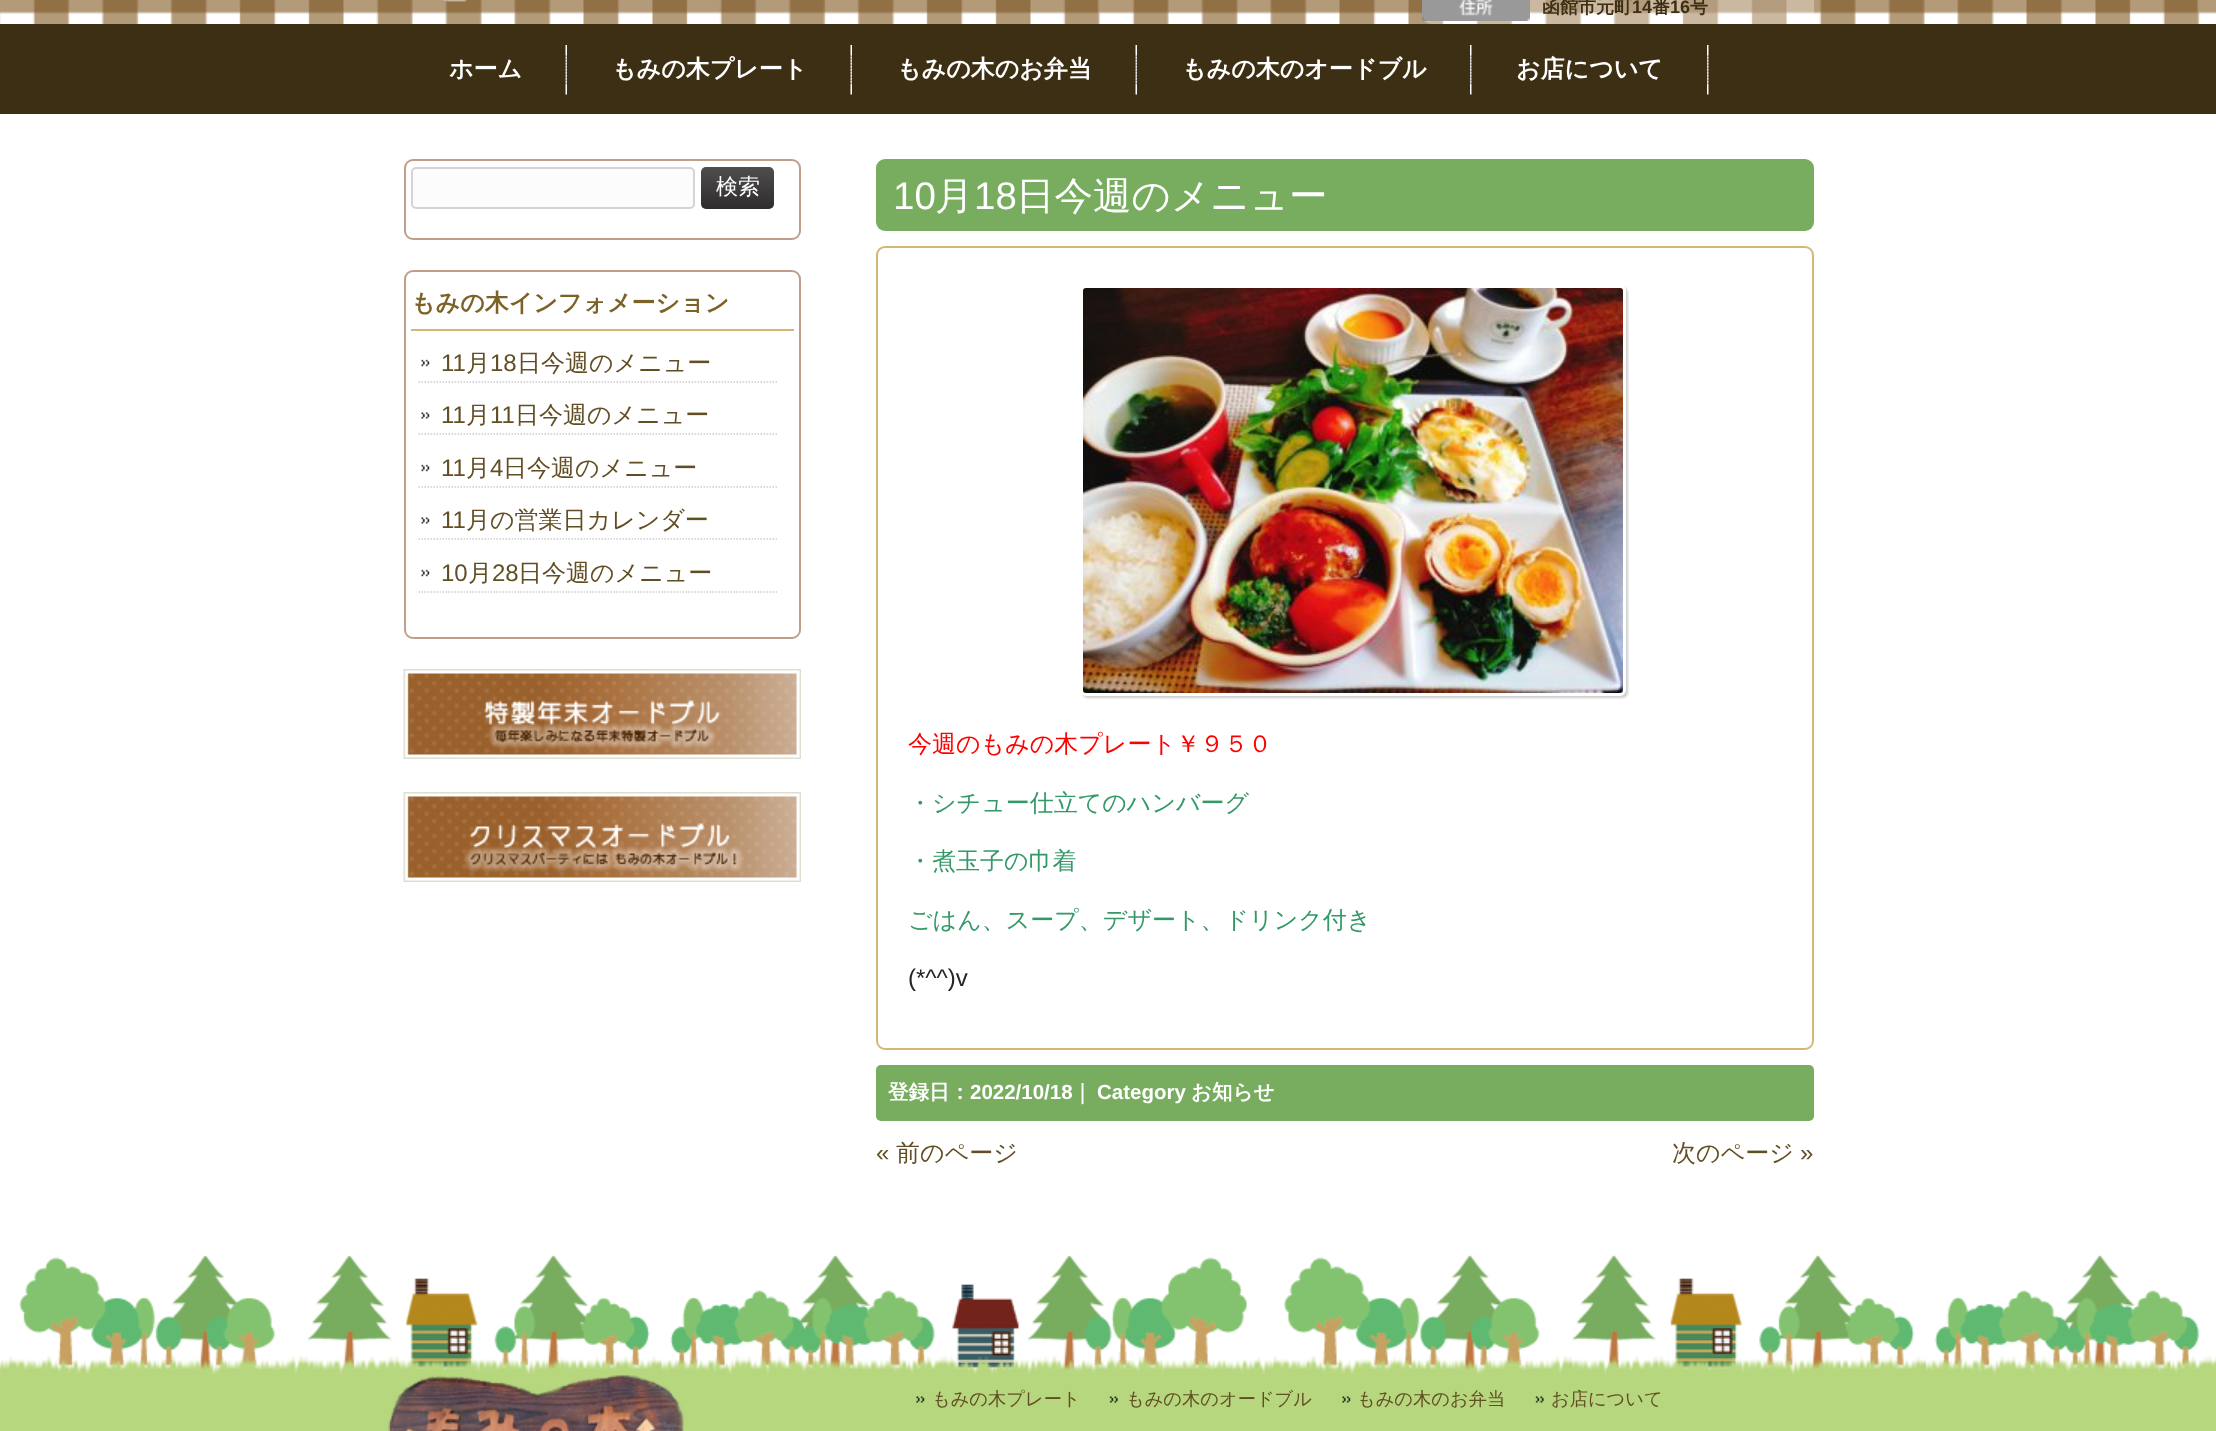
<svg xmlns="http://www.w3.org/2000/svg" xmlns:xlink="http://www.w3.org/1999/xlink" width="2216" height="1431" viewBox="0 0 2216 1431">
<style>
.cls-1{font:bold 18px WenQuanYi Zen Hei;fill:#3c2f13}
.cls-2{font:bold 18px Liberation Sans;fill:#3c2f13}
.cls-3{font:bold 24px WenQuanYi Zen Hei;fill:#ffffff}
.cls-4{font:500 22px WenQuanYi Zen Hei;fill:#ffffff}
.cls-5{font:bold 24px WenQuanYi Zen Hei;fill:#7c6227}
.cls-6{font:24px Liberation Sans;fill:#624e24}
.cls-7{font:500 24px WenQuanYi Zen Hei;fill:#624e24}
.cls-8{font:38.5px Liberation Sans;fill:#ffffff}
.cls-9{font:500 38.5px WenQuanYi Zen Hei;fill:#ffffff}
.cls-10{font:500 24px WenQuanYi Zen Hei;fill:#ff0000}
.cls-11{font:500 24px WenQuanYi Zen Hei;fill:#339966}
.cls-12{font:24px Liberation Sans;fill:#252525}
.cls-13{font:bold 20.5px WenQuanYi Zen Hei;fill:#ffffff}
.cls-14{font:bold 20.5px Liberation Sans;fill:#ffffff}
.cls-15{font:500 18.25px WenQuanYi Zen Hei;fill:#624e24}
</style>
<defs>
<linearGradient id="g1" gradientUnits="userSpaceOnUse" x1="737" y1="167" x2="737" y2="209"><stop offset="0" stop-color="#4f4d4d"/><stop offset="1" stop-color="#2e2c2c"/></linearGradient>
</defs>
<rect width="100%" height="100%" fill="#ffffff"/>
<image xlink:href="image0.png" x="0" y="0" width="2216" height="24"/>
<image xlink:href="image1.png" x="442" y="0" width="25" height="2"/>
<rect fill="#ffffff" fill-opacity="0.3" x="1422" y="-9" width="392" height="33" rx="9"/>
<image xlink:href="image2.png" x="1422" y="0" width="108" height="21"/>
<rect fill="#3c2f13" x="0" y="24" width="2216" height="90"/>
<image xlink:href="image3.png" x="565" y="45" width="2" height="50"/>
<image xlink:href="image3.png" x="850" y="45" width="2" height="50"/>
<image xlink:href="image3.png" x="1135" y="45" width="2" height="50"/>
<image xlink:href="image4.png" x="1470" y="45" width="2" height="50"/>
<image xlink:href="image4.png" x="1707" y="45" width="2" height="50"/>
<rect fill="none" stroke="#bf9f8b" stroke-width="2" x="405" y="160" width="395" height="79" rx="8"/>
<rect fill="#fcfcfc" stroke="#d4d4d7" stroke-width="2" x="412" y="168" width="282" height="40" rx="4"/>
<rect fill="url(#g1)" x="701" y="167" width="73" height="42" rx="5"/>
<rect fill="none" stroke="#bf9f8b" stroke-width="2" x="405" y="271" width="395" height="367" rx="8"/>
<rect fill="#d5b879" x="411" y="329" width="383" height="2"/>
<path fill="none" stroke="#cccccc" stroke-width="1.5" stroke-dasharray="1.5 1.5" d="M418.5 382H778.5"/>
<image xlink:href="image5.png" x="421" y="359" width="9" height="8"/>
<path fill="none" stroke="#cccccc" stroke-width="1.5" stroke-dasharray="1.5 1.5" d="M418.5 434H778.5"/>
<image xlink:href="image6.png" x="421" y="412" width="9" height="7"/>
<path fill="none" stroke="#cccccc" stroke-width="1.5" stroke-dasharray="1.5 1.5" d="M418.5 487H778.5"/>
<image xlink:href="image5.png" x="421" y="464" width="9" height="8"/>
<path fill="none" stroke="#cccccc" stroke-width="1.5" stroke-dasharray="1.5 1.5" d="M418.5 539H778.5"/>
<image xlink:href="image6.png" x="421" y="517" width="9" height="7"/>
<path fill="none" stroke="#cccccc" stroke-width="1.5" stroke-dasharray="1.5 1.5" d="M418.5 592H778.5"/>
<image xlink:href="image5.png" x="421" y="569" width="9" height="8"/>
<image xlink:href="image7.png" x="403" y="669" width="398" height="90"/>
<image xlink:href="image8.png" x="403" y="792" width="398" height="90"/>
<rect fill="#78ac5f" x="876" y="159" width="938" height="72" rx="9"/>
<rect fill="none" stroke="#d5b879" stroke-width="2" x="877" y="247" width="936" height="802" rx="8"/>
<rect fill="#000000" fill-opacity="0.2" filter="blur(1px)" x="1082" y="287" width="546" height="411" rx="6"/>
<rect fill="none" stroke="#ffffff" stroke-width="3" x="1081.5" y="286.5" width="543" height="408" rx="4.5"/>
<image xlink:href="image9.png" x="1083" y="288" width="540" height="405"/>
<rect fill="#78ac5f" x="876" y="1065" width="938" height="56" rx="5"/>
<image xlink:href="image10.png" x="0" y="1255" width="2216" height="176"/>
<image xlink:href="image11.png" x="388" y="1375" width="296" height="56"/>
<image xlink:href="image12.png" x="916" y="1396" width="9" height="7"/>
<image xlink:href="image13.png" x="1109" y="1396" width="9" height="7"/>
<image xlink:href="image14.png" x="1342" y="1396" width="9" height="7"/>
<image xlink:href="image15.png" x="1535" y="1396" width="9" height="7"/>
<text class="cls-1" x="1542" y="13">函館市元町</text>
<text class="cls-2" x="1632" y="13">14</text>
<text class="cls-1" x="1652" y="13">番</text>
<text class="cls-2" x="1670" y="13">16</text>
<text class="cls-1" x="1690" y="13">号</text>
<text class="cls-3" x="449" y="77">ホーム</text>
<text class="cls-3" x="612" y="77">もみの木プレート</text>
<text class="cls-3" x="897" y="77">もみの木のお弁当</text>
<text class="cls-3" x="1182" y="77">もみの木のオードブル</text>
<text class="cls-3" x="1516" y="77">お店について</text>
<text class="cls-4" x="716" y="194">検索</text>
<text class="cls-5" x="411" y="311">もみの木インフォメーション</text>
<text class="cls-6" x="441" y="371">11</text>
<text class="cls-7" x="466" y="371">月</text>
<text class="cls-6" x="490" y="371">18</text>
<text class="cls-7" x="517" y="371">日今週のメニュー</text>
<text class="cls-6" x="441" y="423">11</text>
<text class="cls-7" x="466" y="423">月</text>
<text class="cls-6" x="490" y="423">11</text>
<text class="cls-7" x="515" y="423">日今週のメニュー</text>
<text class="cls-6" x="441" y="476">11</text>
<text class="cls-7" x="466" y="476">月</text>
<text class="cls-6" x="490" y="476">4</text>
<text class="cls-7" x="503" y="476">日今週のメニュー</text>
<text class="cls-6" x="441" y="528">11</text>
<text class="cls-7" x="466" y="528">月の営業日カレンダー</text>
<text class="cls-6" x="441" y="581">10</text>
<text class="cls-7" x="468" y="581">月</text>
<text class="cls-6" x="492" y="581">28</text>
<text class="cls-7" x="518" y="581">日今週のメニュー</text>
<text class="cls-8" x="893" y="209">10</text>
<text class="cls-9" x="935" y="209">月</text>
<text class="cls-8" x="974" y="209">18</text>
<text class="cls-9" x="1016" y="209">日今週のメニュー</text>
<text class="cls-10" x="908" y="752">今週のもみの木プレート￥９５０</text>
<text class="cls-11" x="908" y="811">・シチュー仕立てのハンバーグ</text>
<text class="cls-11" x="908" y="869">・煮玉子の巾着</text>
<text class="cls-11" x="908" y="928">ごはん、スープ、デザート、ドリンク付き</text>
<text class="cls-12" x="908" y="986">(*^^)v</text>
<text class="cls-13" x="888" y="1099">登録日：</text>
<text class="cls-14" x="970" y="1099">2022/10/18</text>
<text class="cls-13" x="1072" y="1099">｜</text>
<text class="cls-14" x="1097" y="1099">Category</text>
<text class="cls-13" x="1191" y="1099">お知らせ</text>
<text class="cls-6" x="876" y="1161">«</text>
<text class="cls-7" x="896" y="1161">前のページ</text>
<text class="cls-7" x="1672" y="1161">次のページ</text>
<text class="cls-6" x="1800" y="1161">»</text>
<text class="cls-15" x="932" y="1405">もみの木プレート</text>
<text class="cls-15" x="1126" y="1405">もみの木のオードブル</text>
<text class="cls-15" x="1357" y="1405">もみの木のお弁当</text>
<text class="cls-15" x="1551" y="1405">お店について</text>
</svg>
